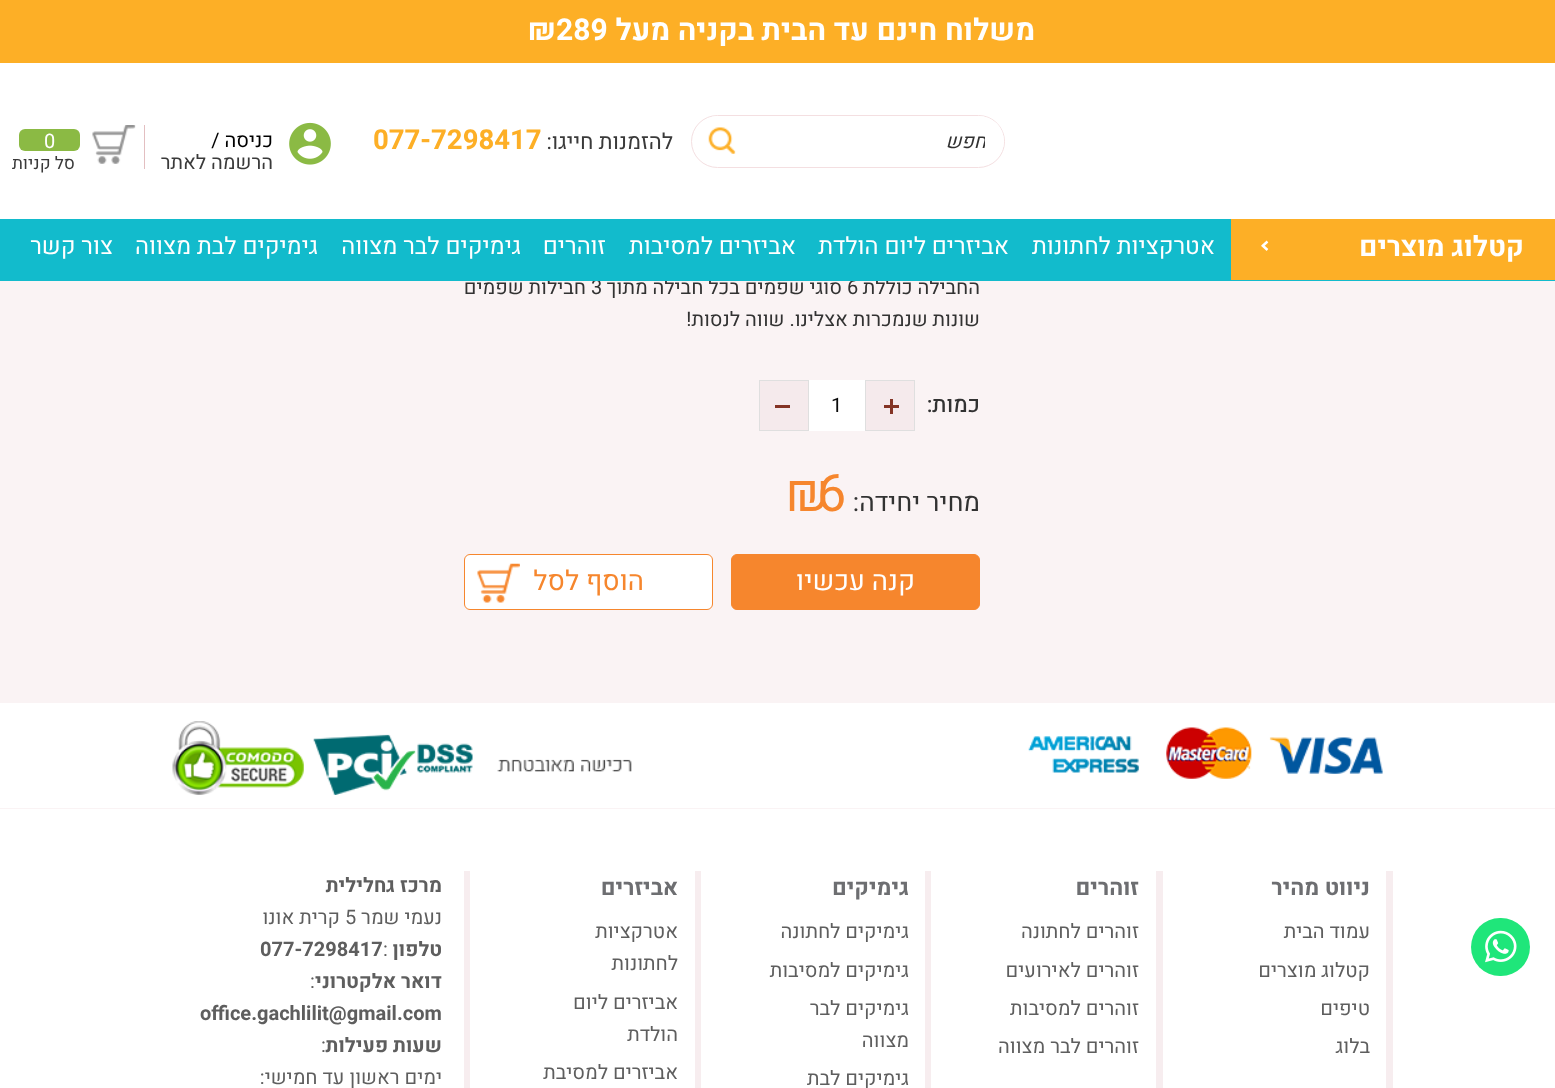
<svg xmlns="http://www.w3.org/2000/svg" xmlns:xlink="http://www.w3.org/1999/xlink" width="1555" height="1088" viewBox="0 0 1555 1088">
<style>
.cls-1{font:bold 30px Heebo;direction:rtl;fill:#ffffff}
.cls-2{font:bold 30px Heebo;fill:#ffffff}
.cls-3{font:italic 20px Heebo;direction:rtl;fill:#323232}
.cls-4{font:22px Heebo;direction:rtl;fill:#3a3a3a}
.cls-5{font:bold 27.5px Heebo;fill:#fdaf26}
.cls-6{font:20px Heebo;direction:rtl;fill:#000000}
.cls-7{font:20px Heebo;direction:rtl;fill:#3a3a3a}
.cls-8{font:20px Heebo;fill:#ffffff}
.cls-9{font:17.5px Heebo;direction:rtl;fill:#3a3a3a}
.cls-10{font:20px Heebo;direction:rtl;fill:#323232}
.cls-11{font:20px Heebo;fill:#323232}
.cls-12{font:23.75px Heebo;direction:rtl;fill:#ffffff}
.cls-13{font:bold 28px Heebo;direction:rtl;fill:#ffffff}
.cls-14{font:500 22.5px Heebo;direction:rtl;fill:#323232}
.cls-15{font:20px Heebo;fill:#0a0a0a}
.cls-16{font:26.25px Heebo;direction:rtl;fill:#323232}
.cls-17{font:52px Heebo;fill:#f6862d}
.cls-18{font:27.5px Heebo;direction:rtl;fill:#ffffff}
.cls-19{font:27.5px Heebo;direction:rtl;fill:#f6862d}
.cls-20{font:bold 22.5px Heebo;direction:rtl;fill:#6d6e71}
.cls-21{font:20px Heebo;direction:rtl;fill:#5e5e5e}
.cls-22{font:bold 20px Heebo;direction:rtl;fill:#5e5e5e}
.cls-23{font:20px Heebo;fill:#5e5e5e}
.cls-24{font:bold 20px Heebo;fill:#5e5e5e}
</style>
<defs>
<clipPath id="clip1"><rect x="760" y="126" width="225" height="30"/></clipPath>
</defs>
<rect width="100%" height="100%" fill="#faf3f4"/>
<rect fill="#ffffff" x="0" y="63" width="1555" height="156"/>
<rect fill="#fdaf26" x="0" y="0" width="1555" height="63"/>
<rect fill="none" stroke="#f4dfe1" x="691.5" y="115.5" width="313" height="52" rx="26"/>
<rect fill="#ffffff" x="693" y="116" width="311" height="50" rx="25"/>
<image xlink:href="image0.png" x="708" y="127" width="28" height="27"/>
<image xlink:href="image1.png" x="289" y="122" width="42" height="43"/>
<image xlink:href="image2.png" x="92" y="125" width="44" height="39"/>
<rect fill="#e3bfc1" x="144" y="125" width="1" height="44"/>
<rect fill="#8bba44" x="19" y="129" width="61" height="22" rx="6"/>
<rect fill="#f5eaec" stroke="#dfdfdf" x="865.5" y="380.5" width="49" height="50"/>
<rect fill="#843425" x="884" y="405" width="15" height="3"/>
<rect fill="#843425" x="890" y="399" width="3" height="15"/>
<rect fill="#ffffff" x="809" y="380" width="56" height="51"/>
<rect fill="#f5eaec" stroke="#dfdfdf" x="759.5" y="380.5" width="49" height="50"/>
<rect fill="#843425" x="775" y="405" width="15" height="3"/>
<rect fill="#f6862d" stroke="#f6862d" x="731.5" y="554.5" width="248" height="55" rx="5.5"/>
<rect fill="#ffffff" stroke="#f6862d" x="464.5" y="554.5" width="248" height="55" rx="5.5"/>
<image xlink:href="image3.png" x="477" y="563" width="43" height="40"/>
<rect fill="#ffffff" x="0" y="703" width="1555" height="385"/>
<rect fill="#1fe67a" x="1471" y="918" width="59" height="58" rx="29"/>
<image xlink:href="image4.png" x="1485" y="930" width="32" height="33"/>
<rect fill="#faf3f4" x="0" y="808" width="1555" height="1"/>
<image xlink:href="image5.png" x="1028" y="727" width="355" height="52"/>
<image xlink:href="image6.png" x="172" y="721" width="460" height="74"/>
<rect fill="#f7edef" x="1386" y="871" width="7" height="217"/>
<rect fill="#f7edef" x="1156" y="871" width="7" height="217"/>
<rect fill="#f7edef" x="925" y="871" width="6" height="217"/>
<rect fill="#f7edef" x="695" y="871" width="6" height="217"/>
<rect fill="#f7edef" x="464" y="871" width="6" height="217"/>
<text class="cls-1" x="1035" y="40">משלוח חינם עד הבית בקניה מעל</text>
<text class="cls-2" x="528" y="40">₪289</text>
<g clip-path="url(#clip1)">
<text class="cls-3" x="986" y="148">חפש</text>
</g>
<text class="cls-4" x="673" y="149">להזמנות חייגו:</text>
<text class="cls-5" x="373" y="149">077-7298417</text>
<text class="cls-6" x="273" y="147">כניסה /</text>
<text class="cls-7" x="273" y="169">הרשמה לאתר</text>
<text class="cls-8" x="44" y="148">0</text>
<text class="cls-9" x="75" y="169">סל קניות</text>
<text class="cls-10" x="980" y="294">החבילה כוללת</text>
<text class="cls-11" x="847" y="294">6</text>
<text class="cls-10" x="842" y="294">סוגי שפמים בכל חבילה מתוך</text>
<text class="cls-11" x="591" y="294">3</text>
<text class="cls-10" x="586" y="294">חבילות שפמים</text>
<rect fill="#12bbcc" x="0" y="219" width="1555" height="62"/>
<text class="cls-12" x="113" y="254">צור קשר</text>
<text class="cls-12" x="318" y="254">גימיקים לבת מצווה</text>
<text class="cls-12" x="521" y="254">גימיקים לבר מצווה</text>
<text class="cls-12" x="606" y="254">זוהרים</text>
<text class="cls-12" x="796" y="254">אביזרים למסיבות</text>
<text class="cls-12" x="1009" y="254">אביזרים ליום הולדת</text>
<text class="cls-12" x="1215" y="254">אטרקציות לחתונות</text>
<rect fill="#fdaf26" x="1231" y="219" width="324" height="61"/>
<text class="cls-13" x="1524" y="256">קטלוג מוצרים</text>
<path fill="none" stroke="#ffffff" stroke-width="2.5" d="M1262 246.5L1267.5 241.5M1262 245L1267.5 250"/>
<text class="cls-10" x="980" y="326">שונות שנמכרות אצלינו. שווה לנסות!</text>
<text class="cls-14" x="980" y="412">כמות:</text>
<text class="cls-15" x="831" y="412">1</text>
<text class="cls-16" x="980" y="511">מחיר יחידה:</text>
<text class="cls-17" x="817" y="511">6</text>
<text class="cls-17" x="786" y="511">₪</text>
<text class="cls-18" x="915" y="590">קנה עכשיו</text>
<text class="cls-19" x="644" y="590">הוסף לסל</text>
<text class="cls-20" x="1370" y="895">ניווט מהיר</text>
<text class="cls-21"><tspan x="1370" y="938">עמוד הבית</tspan><tspan x="1370" y="977">קטלוג מוצרים</tspan><tspan x="1370" y="1015">טיפים</tspan><tspan x="1370" y="1053">בלוג</tspan></text>
<text class="cls-20" x="1139" y="895">זוהרים</text>
<text class="cls-21"><tspan x="1139" y="938">זוהרים לחתונה</tspan><tspan x="1139" y="977">זוהרים לאירועים</tspan><tspan x="1139" y="1015">זוהרים למסיבות</tspan><tspan x="1139" y="1053">זוהרים לבר מצווה</tspan></text>
<text class="cls-20" x="909" y="895">גימיקים</text>
<text class="cls-21"><tspan x="909" y="938">גימיקים לחתונה</tspan><tspan x="909" y="977">גימיקים למסיבות</tspan><tspan x="909" y="1015">גימיקים לבר</tspan><tspan x="909" y="1047">מצווה</tspan><tspan x="909" y="1085">גימיקים לבת</tspan></text>
<text class="cls-20" x="678" y="895">אביזרים</text>
<text class="cls-21"><tspan x="678" y="938">אטרקציות</tspan><tspan x="678" y="970">לחתונות</tspan><tspan x="678" y="1009">אביזרים ליום</tspan><tspan x="678" y="1041">הולדת</tspan><tspan x="678" y="1079">אביזרים למסיבת</tspan></text>
<text class="cls-22" x="442" y="892">מרכז גחלילית</text>
<text class="cls-21" x="442" y="924">נעמי שמר</text>
<text class="cls-23" x="345" y="924">5</text>
<text class="cls-21" x="340" y="924">קרית אונו</text>
<text class="cls-22" x="442" y="956">טלפון</text>
<text class="cls-23" x="383" y="956">:</text>
<text class="cls-24" x="260" y="956">077-7298417</text>
<text class="cls-22" x="442" y="988">דואר אלקטרוני</text>
<text class="cls-23" x="310" y="988">:</text>
<text class="cls-24" x="200" y="1020">office.gachlilit@gmail.com</text>
<text class="cls-22" x="442" y="1052">שעות פעילות</text>
<text class="cls-23" x="321" y="1052">:</text>
<text class="cls-21" x="442" y="1084">ימים ראשון עד חמישי:</text>
</svg>
